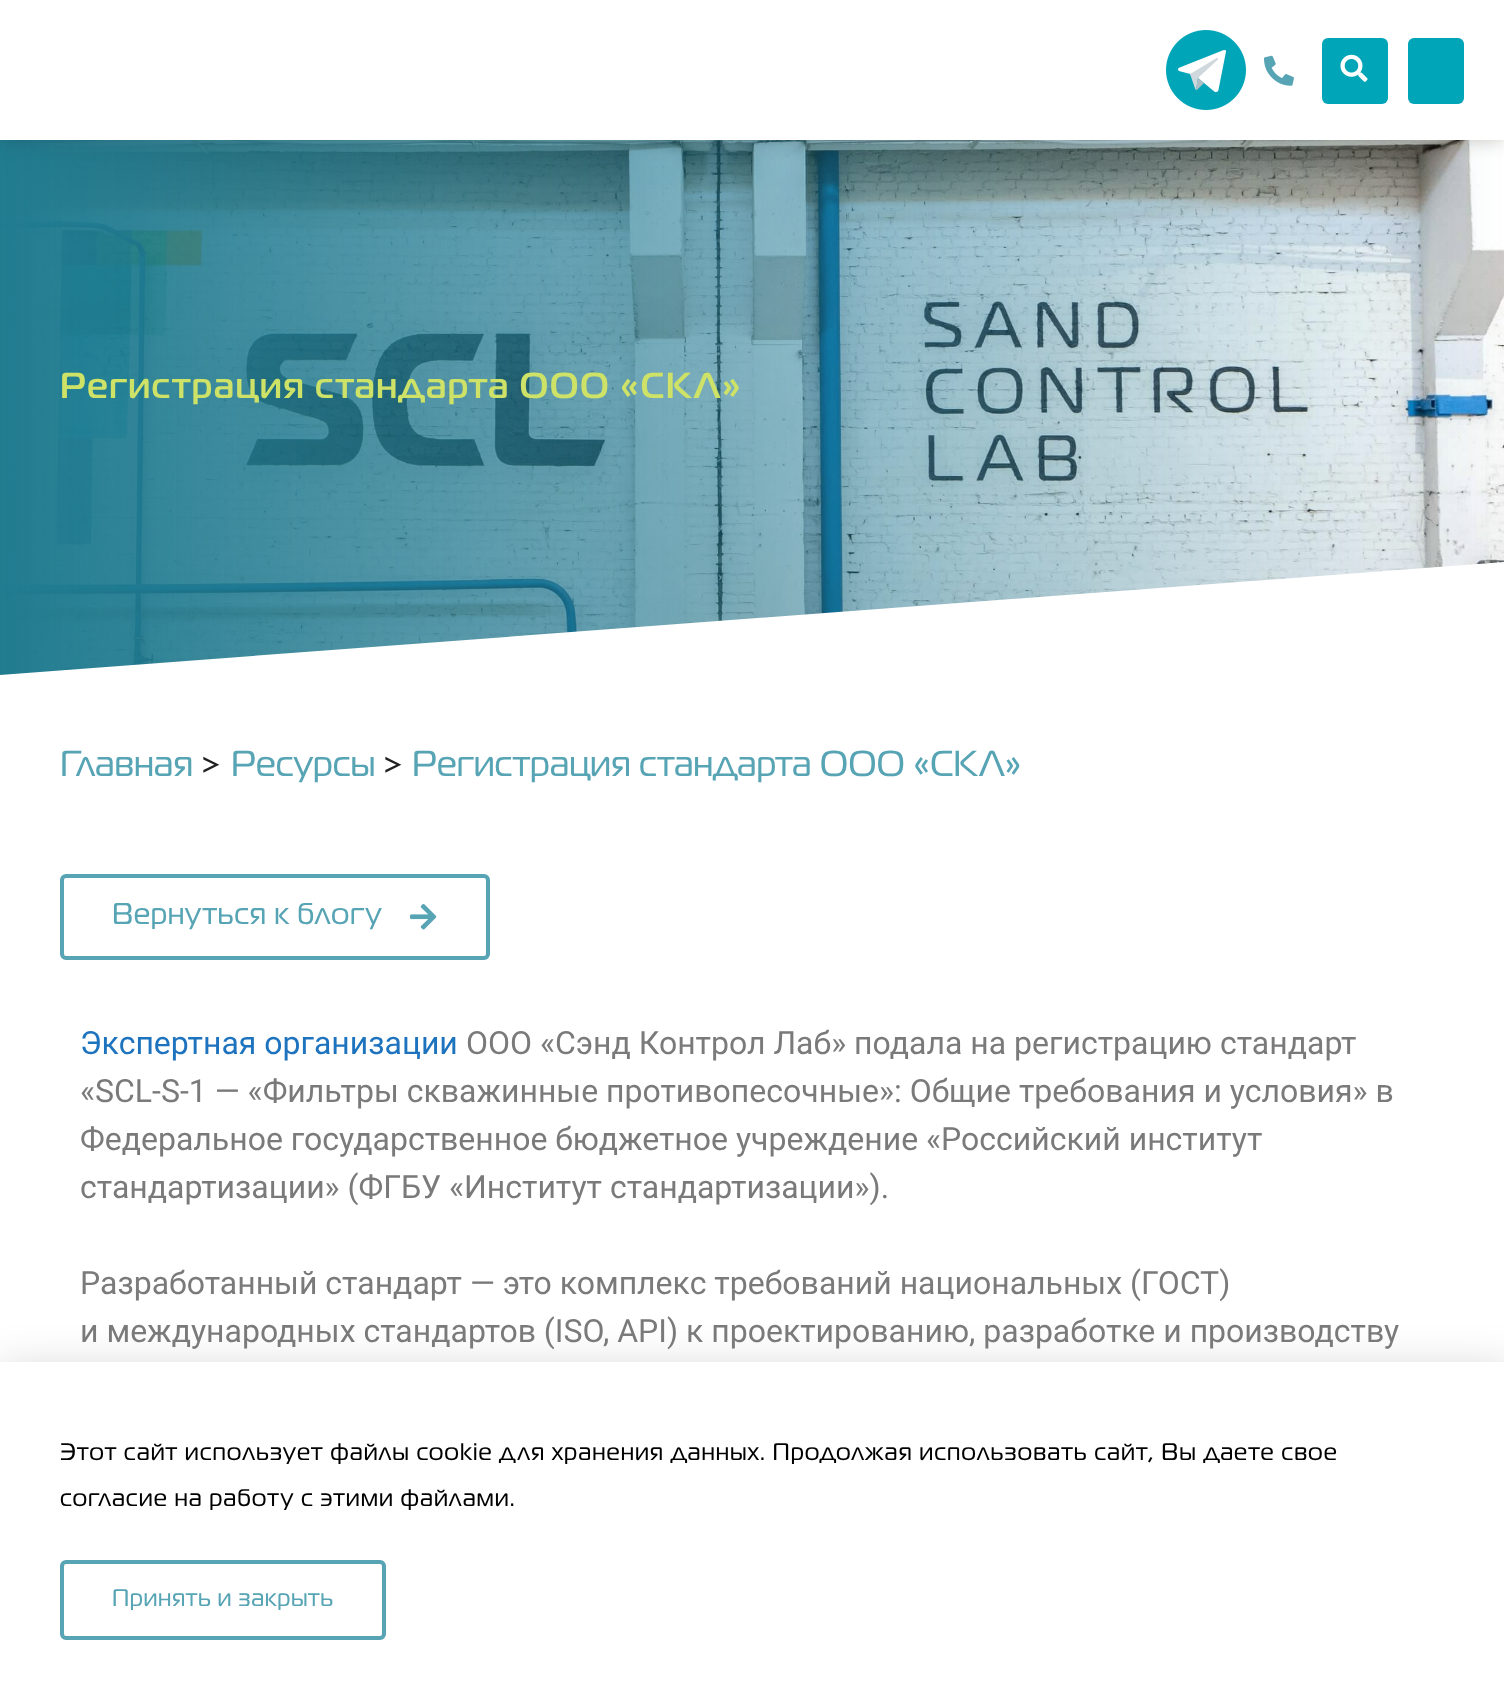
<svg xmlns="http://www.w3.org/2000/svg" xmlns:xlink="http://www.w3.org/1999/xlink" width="1504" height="1700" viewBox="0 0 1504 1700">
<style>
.cls-1{font:500 36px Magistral;letter-spacing:1.4px;fill:#cde267}
.cls-2{font:36px Magistral;fill:#57a4b5}
.cls-3{font:36px Magistral;fill:#222222}
.cls-4{font:30px Magistral;letter-spacing:0.6px;fill:#57a4b5}
.cls-5{font:32px Roboto;fill:#1e73be}
.cls-6{font:32px Roboto;fill:#7a7a7a}
.cls-7{font:24px Magistral;letter-spacing:1px;fill:#000000}
.cls-8{font:24px Magistral;letter-spacing:0.6px;fill:#57a4b5}
</style>
<rect width="100%" height="100%" fill="#ffffff"/>
<image xlink:href="image3.png" x="0" y="140" width="1504" height="535"/>
<rect fill="#000000" fill-opacity="0.21" filter="blur(10px)" x="0" y="0" width="1504" height="140"/>
<rect fill="#ffffff" x="0" y="0" width="1504" height="140"/>
<image xlink:href="image0.png" x="1166" y="30" width="80" height="80"/>
<image xlink:href="image1.png" x="1264" y="55" width="30" height="31"/>
<rect fill="#00a5b7" x="1322" y="38" width="66" height="66" rx="6"/>
<image xlink:href="image2.png" x="1340" y="54" width="28" height="28"/>
<rect fill="#00a5b7" x="1408" y="38" width="56" height="66" rx="6"/>
<path fill="#ffffff" d="M-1 675V682H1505V562Z"/>
<rect fill="none" stroke="#57a4b5" stroke-width="4" x="62" y="876" width="426" height="82" rx="4"/>
<image xlink:href="image4.png" x="410" y="904" width="27" height="26"/>
<rect fill="#000000" fill-opacity="0.2" filter="blur(23px)" x="-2" y="1372" width="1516" height="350"/>
<rect fill="#ffffff" x="0" y="1362" width="1504" height="338"/>
<rect fill="none" stroke="#57a4b5" stroke-width="4" x="62" y="1562" width="322" height="76" rx="4"/>
<text class="cls-1" x="60" y="398">Регистрация стандарта ООО «СКЛ»</text>
<text class="cls-2" x="60" y="776">Главная</text>
<text class="cls-3" x="201" y="776">&gt;</text>
<text class="cls-2" x="231" y="776">Ресурсы</text>
<text class="cls-3" x="383" y="776">&gt;</text>
<text class="cls-2" x="412" y="776">Регистрация стандарта ООО «СКЛ»</text>
<text class="cls-4" x="112" y="924">Вернуться к блогу</text>
<text class="cls-5" x="80" y="1054">Экспертная организации</text>
<text class="cls-6" x="466" y="1054">ООО «Сэнд Контрол Лаб» подала на регистрацию стандарт</text>
<text class="cls-6"><tspan x="80" y="1102">«SCL-S-1 — «Фильтры скважинные противопесочные»: Общие требования и условия» в</tspan><tspan x="80" y="1150">Федеральное государственное бюджетное учреждение «Российский институт</tspan><tspan x="80" y="1198">стандартизации» (ФГБУ «Институт стандартизации»).</tspan></text>
<text class="cls-6"><tspan x="80" y="1294">Разработанный стандарт — это комплекс требований национальных (ГОСТ)</tspan><tspan x="80" y="1342">и международных стандартов (ISO, API) к проектированию, разработке и производству</tspan></text>
<text class="cls-7"><tspan x="60" y="1460">Этот сайт использует файлы cookie для хранения данных. Продолжая использовать сайт, Вы даете свое</tspan><tspan x="60" y="1506">согласие на работу с этими файлами.</tspan></text>
<text class="cls-8" x="112" y="1606">Принять и закрыть</text>
</svg>
